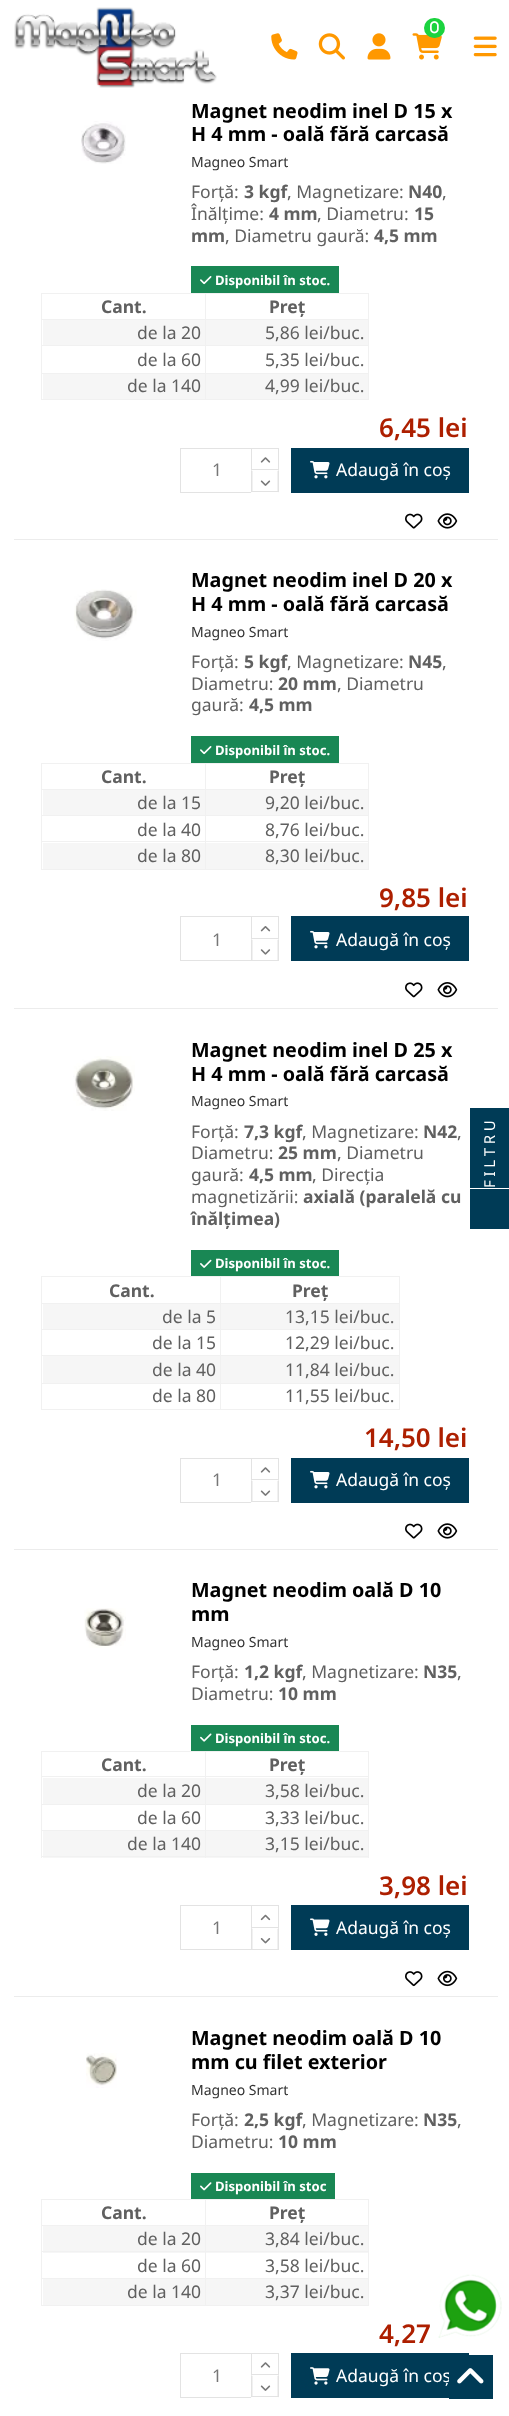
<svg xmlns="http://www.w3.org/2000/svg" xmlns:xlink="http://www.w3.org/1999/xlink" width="509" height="2416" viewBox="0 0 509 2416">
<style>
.cls-1{font:bold 19.75px Noto Sans;fill:#000000}
.cls-2{font:14px Noto Sans;fill:#333333}
.cls-3{font:17.5px Noto Sans;fill:#606060}
.cls-4{font:bold 17.5px Noto Sans;fill:#606060}
.cls-5{font:bold 13.1px Noto Sans;fill:#ffffff}
.cls-6{font:600 26px Noto Sans;fill:#ad1f00}
.cls-7{font:17.5px Noto Sans;fill:#777777}
.cls-8{font:17.5px Noto Sans;fill:#ffffff}
.cls-9{font:15px Noto Sans;letter-spacing:3.75px;fill:#ffffff}
</style>
<rect width="100%" height="100%" fill="#ffffff"/>
<image xlink:href="image0.png" x="14" y="7" width="203" height="81"/>
<image xlink:href="image1.png" x="271" y="33" width="27" height="27"/>
<image xlink:href="image2.png" x="318" y="33" width="27" height="27"/>
<image xlink:href="image3.png" x="367" y="33" width="24" height="27"/>
<image xlink:href="image5.png" x="412" y="33" width="30" height="27"/>
<rect fill="#1bd33f" x="424" y="18" width="21" height="20" rx="10"/>
<image xlink:href="image4.png" x="430" y="21" width="9" height="13"/>
<image xlink:href="image6.png" x="473" y="36" width="24" height="21"/>
<rect fill="#ececec" x="14" y="539" width="484" height="1"/>
<image xlink:href="image7.png" x="81" y="121" width="45" height="43"/>
<rect fill="#198754" x="191" y="266" width="148" height="27"/>
<image xlink:href="image8.png" x="200" y="276" width="12" height="9"/>
<rect fill="#f1f1f1" x="205" y="293" width="164" height="1"/>
<rect fill="#f1f1f1" x="205" y="319" width="164" height="1"/>
<rect fill="#f6f6f6" x="43" y="320" width="325" height="25"/>
<rect fill="#f1f1f1" x="205" y="345" width="164" height="1"/>
<rect fill="#f1f1f1" x="205" y="373" width="164" height="1"/>
<rect fill="#f6f6f6" x="43" y="374" width="325" height="25"/>
<rect fill="#f1f1f1" x="368" y="373" width="1" height="27"/>
<rect fill="#f1f1f1" x="205" y="399" width="164" height="1"/>
<rect fill="#f1f1f1" x="205" y="373" width="1" height="27"/>
<rect fill="#f1f1f1" x="41" y="373" width="165" height="1"/>
<rect fill="#f1f1f1" x="205" y="345" width="1" height="29"/>
<rect fill="#f1f1f1" x="41" y="345" width="165" height="1"/>
<rect fill="#f1f1f1" x="205" y="319" width="1" height="27"/>
<rect fill="#f1f1f1" x="41" y="319" width="165" height="1"/>
<rect fill="#f1f1f1" x="205" y="293" width="1" height="27"/>
<rect fill="#f1f1f1" x="41" y="293" width="165" height="1"/>
<rect fill="#f1f1f1" x="41" y="399" width="165" height="1"/>
<rect fill="#f1f1f1" x="41" y="373" width="1" height="27"/>
<rect fill="#f1f1f1" x="41" y="345" width="1" height="29"/>
<rect fill="#f1f1f1" x="41" y="319" width="1" height="27"/>
<rect fill="#f1f1f1" x="41" y="293" width="1" height="27"/>
<rect fill="#f1f1f1" x="368" y="345" width="1" height="29"/>
<rect fill="#f1f1f1" x="368" y="319" width="1" height="27"/>
<rect fill="#f1f1f1" x="368" y="293" width="1" height="27"/>
<rect fill="none" stroke="#e3e3e3" x="180.5" y="448.5" width="73" height="44"/>
<rect fill="#ffffff" x="253" y="449" width="1" height="20"/>
<rect fill="none" stroke="#e3e3e3" x="251.5" y="448.5" width="27" height="21"/>
<image xlink:href="image9.png" x="260" y="457" width="11" height="6"/>
<rect fill="#ffffff" x="251" y="470" width="3" height="23"/>
<path fill="#e3e3e3" d="M279 470V492.5L277.5 491V471Z"/>
<rect fill="#e3e3e3" x="251" y="491" width="28" height="1"/>
<path fill="#e3e3e3" d="M251 492.5V470L252.5 471V491Z"/>
<image xlink:href="image10.png" x="260" y="480" width="11" height="6"/>
<rect fill="#003b56" x="291" y="448" width="178" height="45"/>
<image xlink:href="image11.png" x="310" y="460" width="20" height="19"/>
<image xlink:href="image12.png" x="405" y="513" width="18" height="16"/>
<image xlink:href="image13.png" x="437" y="513" width="21" height="16"/>
<rect fill="#ececec" x="14" y="1008" width="484" height="1"/>
<image xlink:href="image14.png" x="74" y="589" width="63" height="52"/>
<rect fill="#198754" x="191" y="736" width="148" height="27"/>
<image xlink:href="image8.png" x="200" y="746" width="12" height="9"/>
<rect fill="#f1f1f1" x="205" y="763" width="164" height="1"/>
<rect fill="#f1f1f1" x="205" y="789" width="164" height="1"/>
<rect fill="#f6f6f6" x="43" y="790" width="325" height="25"/>
<rect fill="#f1f1f1" x="205" y="815" width="164" height="1"/>
<rect fill="#f1f1f1" x="205" y="841" width="164" height="1"/>
<rect fill="#f6f6f6" x="43" y="843" width="325" height="26"/>
<rect fill="#f1f1f1" x="368" y="841" width="1" height="29"/>
<rect fill="#f1f1f1" x="205" y="869" width="164" height="1"/>
<rect fill="#f1f1f1" x="205" y="841" width="1" height="29"/>
<rect fill="#f1f1f1" x="41" y="841" width="165" height="1"/>
<rect fill="#f1f1f1" x="205" y="815" width="1" height="28"/>
<rect fill="#f1f1f1" x="41" y="815" width="165" height="1"/>
<rect fill="#f1f1f1" x="205" y="789" width="1" height="27"/>
<rect fill="#f1f1f1" x="41" y="789" width="165" height="1"/>
<rect fill="#f1f1f1" x="205" y="763" width="1" height="27"/>
<rect fill="#f1f1f1" x="41" y="763" width="165" height="1"/>
<rect fill="#f1f1f1" x="41" y="869" width="165" height="1"/>
<rect fill="#f1f1f1" x="41" y="841" width="1" height="29"/>
<rect fill="#f1f1f1" x="41" y="815" width="1" height="28"/>
<rect fill="#f1f1f1" x="41" y="789" width="1" height="27"/>
<rect fill="#f1f1f1" x="41" y="763" width="1" height="27"/>
<rect fill="#f1f1f1" x="368" y="815" width="1" height="28"/>
<rect fill="#f1f1f1" x="368" y="789" width="1" height="27"/>
<rect fill="#f1f1f1" x="368" y="763" width="1" height="27"/>
<rect fill="none" stroke="#e3e3e3" x="180.5" y="916.5" width="73" height="44"/>
<rect fill="#ffffff" x="253" y="917" width="1" height="21"/>
<rect fill="none" stroke="#e3e3e3" x="251.5" y="916.5" width="27" height="22"/>
<image xlink:href="image15.png" x="260" y="926" width="11" height="6"/>
<rect fill="#ffffff" x="253" y="939" width="1" height="21"/>
<path fill="#e3e3e3" d="M279 939V961L277.5 960V940Z"/>
<rect fill="#e3e3e3" x="251" y="960" width="28" height="1"/>
<path fill="#e3e3e3" d="M251 961V939L252.5 940V960Z"/>
<image xlink:href="image16.png" x="260" y="949" width="11" height="6"/>
<rect fill="#003b56" x="291" y="916" width="178" height="45"/>
<image xlink:href="image11.png" x="310" y="930" width="20" height="19"/>
<image xlink:href="image17.png" x="405" y="982" width="18" height="16"/>
<image xlink:href="image18.png" x="437" y="982" width="21" height="16"/>
<rect fill="#ececec" x="14" y="1549" width="484" height="1"/>
<image xlink:href="image19.png" x="73" y="1056" width="62" height="55"/>
<rect fill="#198754" x="191" y="1250" width="148" height="26"/>
<image xlink:href="image20.png" x="200" y="1259" width="12" height="9"/>
<rect fill="#f1f1f1" x="220" y="1276" width="180" height="1"/>
<rect fill="#f1f1f1" x="220" y="1303" width="180" height="1"/>
<rect fill="#f6f6f6" x="43" y="1304" width="356" height="25"/>
<rect fill="#f1f1f1" x="220" y="1329" width="180" height="1"/>
<rect fill="#f1f1f1" x="220" y="1355" width="180" height="1"/>
<rect fill="#f6f6f6" x="43" y="1356" width="356" height="27"/>
<rect fill="#f1f1f1" x="220" y="1383" width="180" height="1"/>
<rect fill="#f1f1f1" x="399" y="1383" width="1" height="27"/>
<rect fill="#f1f1f1" x="220" y="1409" width="180" height="1"/>
<rect fill="#f1f1f1" x="220" y="1383" width="1" height="27"/>
<rect fill="#f1f1f1" x="41" y="1383" width="180" height="1"/>
<rect fill="#f1f1f1" x="220" y="1355" width="1" height="29"/>
<rect fill="#f1f1f1" x="41" y="1355" width="180" height="1"/>
<rect fill="#f1f1f1" x="220" y="1329" width="1" height="27"/>
<rect fill="#f1f1f1" x="41" y="1329" width="180" height="1"/>
<rect fill="#f1f1f1" x="220" y="1303" width="1" height="27"/>
<rect fill="#f1f1f1" x="41" y="1303" width="180" height="1"/>
<rect fill="#f1f1f1" x="220" y="1276" width="1" height="28"/>
<rect fill="#f1f1f1" x="41" y="1276" width="180" height="1"/>
<rect fill="#f1f1f1" x="41" y="1409" width="180" height="1"/>
<rect fill="#f1f1f1" x="41" y="1383" width="1" height="27"/>
<rect fill="#f1f1f1" x="41" y="1355" width="1" height="29"/>
<rect fill="#f1f1f1" x="41" y="1329" width="1" height="27"/>
<rect fill="#f1f1f1" x="41" y="1303" width="1" height="27"/>
<rect fill="#f1f1f1" x="41" y="1276" width="1" height="28"/>
<rect fill="#f1f1f1" x="399" y="1355" width="1" height="29"/>
<rect fill="#f1f1f1" x="399" y="1329" width="1" height="27"/>
<rect fill="#f1f1f1" x="399" y="1303" width="1" height="27"/>
<rect fill="#f1f1f1" x="399" y="1276" width="1" height="28"/>
<rect fill="none" stroke="#e3e3e3" x="180.5" y="1458.5" width="73" height="44"/>
<rect fill="#ffffff" x="253" y="1459" width="1" height="20"/>
<rect fill="none" stroke="#e3e3e3" x="251.5" y="1458.5" width="27" height="21"/>
<image xlink:href="image9.png" x="260" y="1467" width="11" height="6"/>
<rect fill="#ffffff" x="251" y="1480" width="3" height="23"/>
<path fill="#e3e3e3" d="M279 1480V1502.5L277.5 1501V1481Z"/>
<rect fill="#e3e3e3" x="251" y="1501" width="28" height="1"/>
<path fill="#e3e3e3" d="M251 1502.5V1480L252.5 1481V1501Z"/>
<image xlink:href="image10.png" x="260" y="1490" width="11" height="6"/>
<rect fill="#003b56" x="291" y="1458" width="178" height="45"/>
<image xlink:href="image11.png" x="310" y="1470" width="20" height="19"/>
<image xlink:href="image12.png" x="405" y="1523" width="18" height="16"/>
<image xlink:href="image13.png" x="437" y="1523" width="21" height="16"/>
<rect fill="#ececec" x="14" y="1996" width="484" height="1"/>
<image xlink:href="image21.png" x="84" y="1608" width="42" height="40"/>
<rect fill="#198754" x="191" y="1725" width="148" height="26"/>
<image xlink:href="image22.png" x="200" y="1733" width="12" height="9"/>
<rect fill="#f1f1f1" x="205" y="1751" width="164" height="1"/>
<rect fill="#f1f1f1" x="205" y="1776" width="164" height="1"/>
<rect fill="#f6f6f6" x="43" y="1778" width="325" height="26"/>
<rect fill="#f1f1f1" x="205" y="1804" width="164" height="1"/>
<rect fill="#f1f1f1" x="205" y="1830" width="164" height="1"/>
<rect fill="#f6f6f6" x="43" y="1831" width="325" height="27"/>
<rect fill="#f1f1f1" x="368" y="1830" width="1" height="28"/>
<rect fill="#f1f1f1" x="205" y="1856" width="164" height="1"/>
<rect fill="#f1f1f1" x="205" y="1830" width="1" height="28"/>
<rect fill="#f1f1f1" x="41" y="1830" width="165" height="1"/>
<rect fill="#f1f1f1" x="205" y="1804" width="1" height="27"/>
<rect fill="#f1f1f1" x="41" y="1804" width="165" height="1"/>
<rect fill="#f1f1f1" x="205" y="1776" width="1" height="29"/>
<rect fill="#f1f1f1" x="41" y="1776" width="165" height="1"/>
<rect fill="#f1f1f1" x="205" y="1751" width="1" height="27"/>
<rect fill="#f1f1f1" x="41" y="1751" width="165" height="1"/>
<rect fill="#f1f1f1" x="41" y="1856" width="165" height="1"/>
<rect fill="#f1f1f1" x="41" y="1830" width="1" height="28"/>
<rect fill="#f1f1f1" x="41" y="1804" width="1" height="27"/>
<rect fill="#f1f1f1" x="41" y="1776" width="1" height="29"/>
<rect fill="#f1f1f1" x="41" y="1751" width="1" height="27"/>
<rect fill="#f1f1f1" x="368" y="1804" width="1" height="27"/>
<rect fill="#f1f1f1" x="368" y="1776" width="1" height="29"/>
<rect fill="#f1f1f1" x="368" y="1751" width="1" height="27"/>
<rect fill="none" stroke="#e3e3e3" x="180.5" y="1905.5" width="73" height="44"/>
<rect fill="#ffffff" x="253" y="1906" width="1" height="21"/>
<rect fill="none" stroke="#e3e3e3" x="251.5" y="1905.5" width="27" height="22"/>
<image xlink:href="image23.png" x="260" y="1914" width="11" height="7"/>
<rect fill="#ffffff" x="253" y="1928" width="1" height="21"/>
<path fill="#e3e3e3" d="M279 1927.5V1950L277.5 1949V1929Z"/>
<rect fill="#e3e3e3" x="251" y="1949" width="28" height="1"/>
<path fill="#e3e3e3" d="M251 1950V1927.5L252.5 1929V1949Z"/>
<image xlink:href="image24.png" x="260" y="1938" width="11" height="6"/>
<rect fill="#003b56" x="291" y="1905" width="178" height="45"/>
<image xlink:href="image25.png" x="310" y="1918" width="20" height="18"/>
<image xlink:href="image26.png" x="405" y="1971" width="18" height="16"/>
<image xlink:href="image27.png" x="437" y="1970" width="21" height="17"/>
<image xlink:href="image28.png" x="86" y="2053" width="31" height="35"/>
<rect fill="#198754" x="191" y="2173" width="144" height="26"/>
<image xlink:href="image29.png" x="200" y="2182" width="12" height="9"/>
<rect fill="#f1f1f1" x="205" y="2199" width="164" height="1"/>
<rect fill="#f1f1f1" x="205" y="2225" width="164" height="1"/>
<rect fill="#f6f6f6" x="43" y="2226" width="325" height="27"/>
<rect fill="#f1f1f1" x="205" y="2251" width="164" height="1"/>
<rect fill="#f1f1f1" x="205" y="2278" width="164" height="1"/>
<rect fill="#f6f6f6" x="43" y="2279" width="325" height="26"/>
<rect fill="#f1f1f1" x="368" y="2278" width="1" height="28"/>
<rect fill="#f1f1f1" x="205" y="2305" width="164" height="1"/>
<rect fill="#f1f1f1" x="205" y="2278" width="1" height="28"/>
<rect fill="#f1f1f1" x="41" y="2278" width="165" height="1"/>
<rect fill="#f1f1f1" x="205" y="2251" width="1" height="28"/>
<rect fill="#f1f1f1" x="41" y="2251" width="165" height="1"/>
<rect fill="#f1f1f1" x="205" y="2225" width="1" height="28"/>
<rect fill="#f1f1f1" x="41" y="2225" width="165" height="1"/>
<rect fill="#f1f1f1" x="205" y="2199" width="1" height="27"/>
<rect fill="#f1f1f1" x="41" y="2199" width="165" height="1"/>
<rect fill="#f1f1f1" x="41" y="2305" width="165" height="1"/>
<rect fill="#f1f1f1" x="41" y="2278" width="1" height="28"/>
<rect fill="#f1f1f1" x="41" y="2251" width="1" height="28"/>
<rect fill="#f1f1f1" x="41" y="2225" width="1" height="28"/>
<rect fill="#f1f1f1" x="41" y="2199" width="1" height="27"/>
<rect fill="#f1f1f1" x="368" y="2251" width="1" height="28"/>
<rect fill="#f1f1f1" x="368" y="2225" width="1" height="28"/>
<rect fill="#f1f1f1" x="368" y="2199" width="1" height="27"/>
<rect fill="none" stroke="#e3e3e3" x="180.5" y="2353.5" width="73" height="44"/>
<rect fill="#ffffff" x="253" y="2354" width="1" height="20"/>
<rect fill="none" stroke="#e3e3e3" x="251.5" y="2353.5" width="27" height="21"/>
<image xlink:href="image9.png" x="260" y="2362" width="11" height="6"/>
<rect fill="#ffffff" x="251" y="2375" width="3" height="23"/>
<path fill="#e3e3e3" d="M279 2375V2397.5L277.5 2396V2376Z"/>
<rect fill="#e3e3e3" x="251" y="2396" width="28" height="1"/>
<path fill="#e3e3e3" d="M251 2397.5V2375L252.5 2376V2396Z"/>
<image xlink:href="image10.png" x="260" y="2385" width="11" height="6"/>
<rect fill="#003b56" x="291" y="2353" width="178" height="45"/>
<image xlink:href="image30.png" x="310" y="2367" width="20" height="18"/>
<image xlink:href="image31.png" x="438" y="2274" width="64" height="64"/>
<rect fill="#003b56" x="470" y="1189" width="39" height="40"/>
<rect fill="#003b56" x="470" y="1108" width="39" height="80"/>
<text class="cls-1"><tspan x="191" y="118">Magnet neodim inel D 15 x</tspan><tspan x="191" y="141">H 4 mm - oală fără carcasă</tspan></text>
<text class="cls-2" x="191" y="167">Magneo Smart</text>
<text class="cls-3" x="191" y="198">Forță:</text>
<text class="cls-4" x="244" y="198">3 kgf</text>
<text class="cls-3" x="287" y="198">, Magnetizare:</text>
<text class="cls-4" x="408" y="198">N40</text>
<text class="cls-3" x="442" y="198">,</text>
<text class="cls-3" x="191" y="220">Înălțime:</text>
<text class="cls-4" x="269" y="220">4 mm</text>
<text class="cls-3" x="317" y="220">, Diametru:</text>
<text class="cls-4" x="414" y="220">15</text>
<text class="cls-4" x="191" y="242">mm</text>
<text class="cls-3" x="225" y="242">, Diametru gaură:</text>
<text class="cls-4" x="374" y="242">4,5 mm</text>
<text class="cls-5" x="215" y="285">Disponibil în stoc.</text>
<text class="cls-4" x="101" y="313">Cant.</text>
<text class="cls-4" x="269" y="313">Preț</text>
<text class="cls-3" x="137" y="339">de la 20</text>
<text class="cls-3" x="265" y="339">5,86 lei/buc.</text>
<text class="cls-3" x="137" y="366">de la 60</text>
<text class="cls-3" x="265" y="366">5,35 lei/buc.</text>
<text class="cls-3" x="127" y="392">de la 140</text>
<text class="cls-3" x="265" y="392">4,99 lei/buc.</text>
<text class="cls-6" x="379" y="437">6,45 lei</text>
<text class="cls-7" x="212" y="476">1</text>
<text class="cls-8" x="336" y="476">Adaugă în coș</text>
<text class="cls-1"><tspan x="191" y="587">Magnet neodim inel D 20 x</tspan><tspan x="191" y="611">H 4 mm - oală fără carcasă</tspan></text>
<text class="cls-2" x="191" y="637">Magneo Smart</text>
<text class="cls-3" x="191" y="668">Forță:</text>
<text class="cls-4" x="244" y="668">5 kgf</text>
<text class="cls-3" x="287" y="668">, Magnetizare:</text>
<text class="cls-4" x="408" y="668">N45</text>
<text class="cls-3" x="442" y="668">,</text>
<text class="cls-3" x="191" y="690">Diametru:</text>
<text class="cls-4" x="278" y="690">20 mm</text>
<text class="cls-3" x="337" y="690">, Diametru</text>
<text class="cls-3" x="191" y="711">gaură:</text>
<text class="cls-4" x="249" y="711">4,5 mm</text>
<text class="cls-5" x="215" y="755">Disponibil în stoc.</text>
<text class="cls-4" x="101" y="783">Cant.</text>
<text class="cls-4" x="269" y="783">Preț</text>
<text class="cls-3" x="137" y="809">de la 15</text>
<text class="cls-3" x="265" y="809">9,20 lei/buc.</text>
<text class="cls-3" x="137" y="836">de la 40</text>
<text class="cls-3" x="265" y="836">8,76 lei/buc.</text>
<text class="cls-3" x="137" y="862">de la 80</text>
<text class="cls-3" x="265" y="862">8,30 lei/buc.</text>
<text class="cls-6" x="379" y="907">9,85 lei</text>
<text class="cls-7" x="212" y="946">1</text>
<text class="cls-8" x="336" y="946">Adaugă în coș</text>
<text class="cls-1"><tspan x="191" y="1057">Magnet neodim inel D 25 x</tspan><tspan x="191" y="1081">H 4 mm - oală fără carcasă</tspan></text>
<text class="cls-2" x="191" y="1106">Magneo Smart</text>
<text class="cls-3" x="191" y="1138">Forță:</text>
<text class="cls-4" x="244" y="1138">7,3 kgf</text>
<text class="cls-3" x="302" y="1138">, Magnetizare:</text>
<text class="cls-4" x="423" y="1138">N42</text>
<text class="cls-3" x="457" y="1138">,</text>
<text class="cls-3" x="191" y="1159">Diametru:</text>
<text class="cls-4" x="278" y="1159">25 mm</text>
<text class="cls-3" x="337" y="1159">, Diametru</text>
<text class="cls-3" x="191" y="1181">gaură:</text>
<text class="cls-4" x="249" y="1181">4,5 mm</text>
<text class="cls-3" x="312" y="1181">, Direcția</text>
<text class="cls-3" x="191" y="1203">magnetizării:</text>
<text class="cls-4" x="303" y="1203">axială (paralelă cu</text>
<text class="cls-4" x="191" y="1225">înălțimea)</text>
<text class="cls-5" x="215" y="1268">Disponibil în stoc.</text>
<text class="cls-4" x="109" y="1297">Cant.</text>
<text class="cls-4" x="292" y="1297">Preț</text>
<text class="cls-3" x="162" y="1323">de la 5</text>
<text class="cls-3" x="285" y="1323">13,15 lei/buc.</text>
<text class="cls-3" x="152" y="1349">de la 15</text>
<text class="cls-3" x="285" y="1349">12,29 lei/buc.</text>
<text class="cls-3" x="152" y="1376">de la 40</text>
<text class="cls-3" x="285" y="1376">11,84 lei/buc.</text>
<text class="cls-3" x="152" y="1402">de la 80</text>
<text class="cls-3" x="285" y="1402">11,55 lei/buc.</text>
<text class="cls-6" x="364" y="1447">14,50 lei</text>
<text class="cls-7" x="212" y="1486">1</text>
<text class="cls-8" x="336" y="1486">Adaugă în coș</text>
<text class="cls-1"><tspan x="191" y="1597">Magnet neodim oală D 10</tspan><tspan x="191" y="1621">mm</tspan></text>
<text class="cls-2" x="191" y="1647">Magneo Smart</text>
<text class="cls-3" x="191" y="1678">Forță:</text>
<text class="cls-4" x="244" y="1678">1,2 kgf</text>
<text class="cls-3" x="302" y="1678">, Magnetizare:</text>
<text class="cls-4" x="423" y="1678">N35</text>
<text class="cls-3" x="457" y="1678">,</text>
<text class="cls-3" x="191" y="1700">Diametru:</text>
<text class="cls-4" x="278" y="1700">10 mm</text>
<text class="cls-5" x="215" y="1743">Disponibil în stoc.</text>
<text class="cls-4" x="101" y="1771">Cant.</text>
<text class="cls-4" x="269" y="1771">Preț</text>
<text class="cls-3" x="137" y="1797">de la 20</text>
<text class="cls-3" x="265" y="1797">3,58 lei/buc.</text>
<text class="cls-3" x="137" y="1824">de la 60</text>
<text class="cls-3" x="265" y="1824">3,33 lei/buc.</text>
<text class="cls-3" x="127" y="1850">de la 140</text>
<text class="cls-3" x="265" y="1850">3,15 lei/buc.</text>
<text class="cls-6" x="379" y="1895">3,98 lei</text>
<text class="cls-7" x="212" y="1934">1</text>
<text class="cls-8" x="336" y="1934">Adaugă în coș</text>
<text class="cls-1"><tspan x="191" y="2045">Magnet neodim oală D 10</tspan><tspan x="191" y="2069">mm cu filet exterior</tspan></text>
<text class="cls-2" x="191" y="2095">Magneo Smart</text>
<text class="cls-3" x="191" y="2126">Forță:</text>
<text class="cls-4" x="244" y="2126">2,5 kgf</text>
<text class="cls-3" x="302" y="2126">, Magnetizare:</text>
<text class="cls-4" x="423" y="2126">N35</text>
<text class="cls-3" x="457" y="2126">,</text>
<text class="cls-3" x="191" y="2148">Diametru:</text>
<text class="cls-4" x="278" y="2148">10 mm</text>
<text class="cls-5" x="215" y="2191">Disponibil în stoc</text>
<text class="cls-4" x="101" y="2219">Cant.</text>
<text class="cls-4" x="269" y="2219">Preț</text>
<text class="cls-3" x="137" y="2245">de la 20</text>
<text class="cls-3" x="265" y="2245">3,84 lei/buc.</text>
<text class="cls-3" x="137" y="2272">de la 60</text>
<text class="cls-3" x="265" y="2272">3,58 lei/buc.</text>
<text class="cls-3" x="127" y="2298">de la 140</text>
<text class="cls-3" x="265" y="2298">3,37 lei/buc.</text>
<text class="cls-6" x="379" y="2343">4,27</text>
<text class="cls-7" x="212" y="2382">1</text>
<text class="cls-8" x="336" y="2382">Adaugă în coș</text>
<text class="cls-9" x="495" y="1188" transform="rotate(-90 495 1188)">FILTRU</text>
<rect fill="#003b56" x="449" y="2355" width="44" height="44"/>
<image xlink:href="image32.png" x="457" y="2368" width="27" height="16"/>
</svg>
